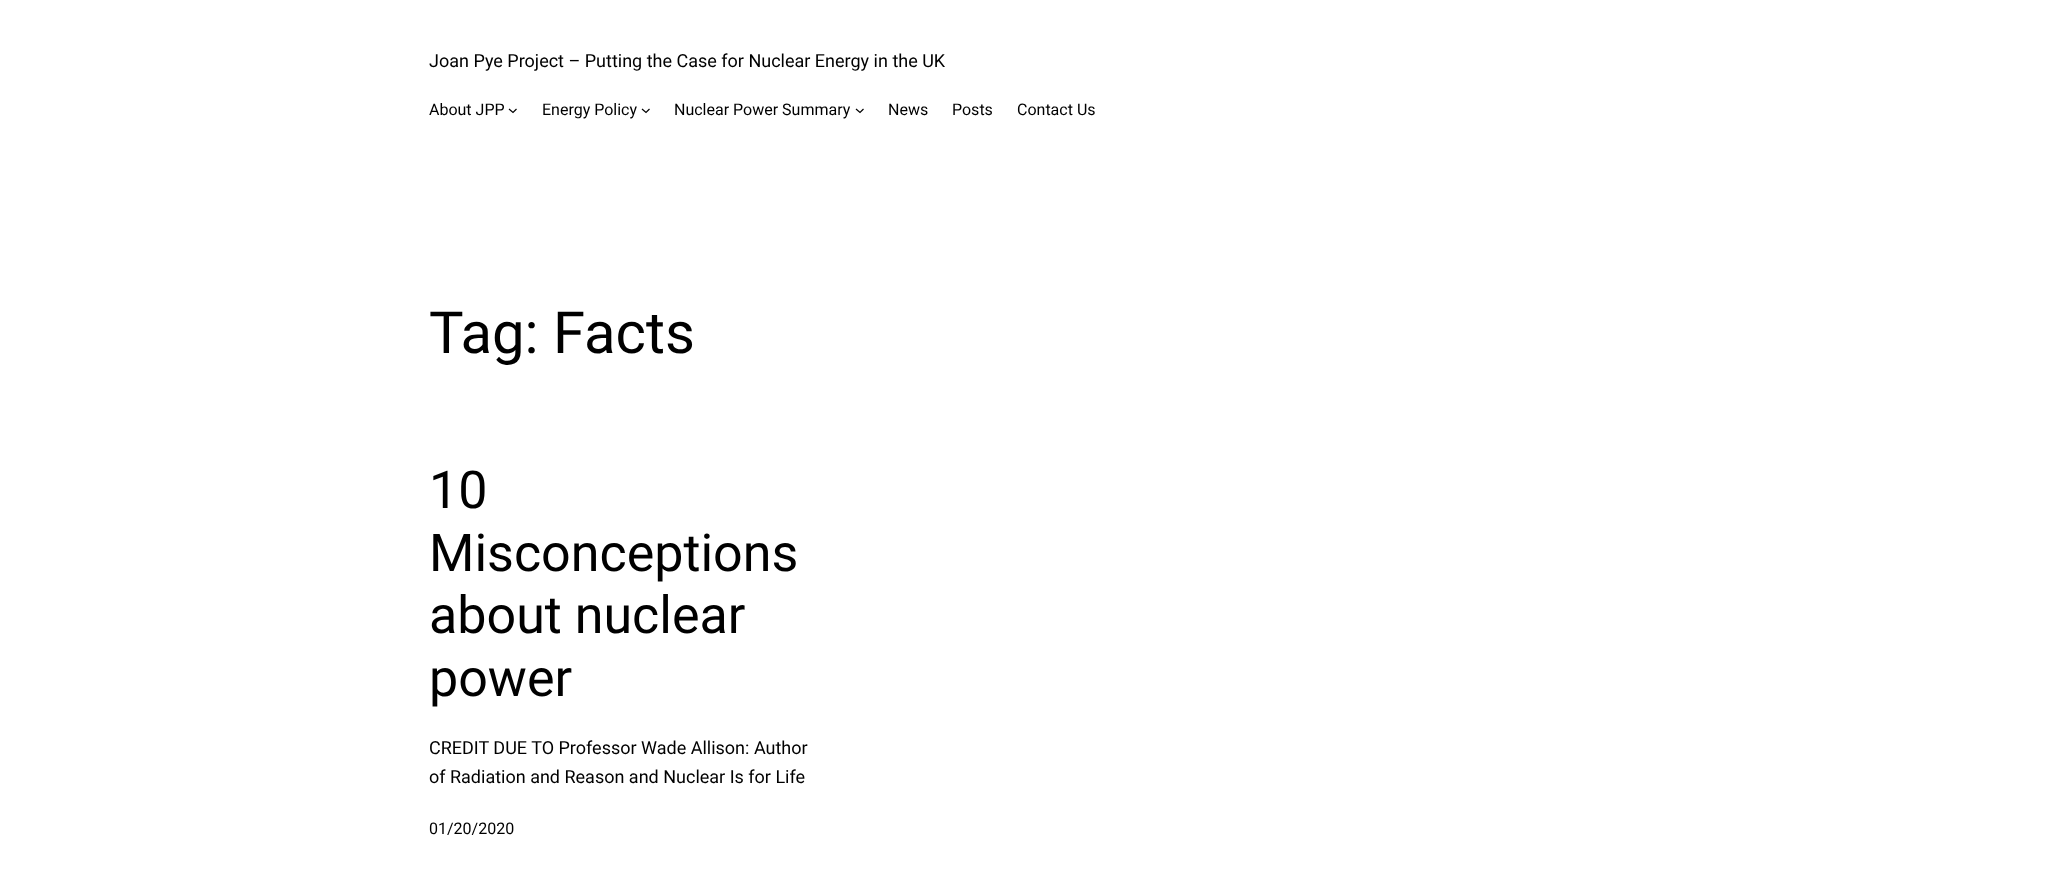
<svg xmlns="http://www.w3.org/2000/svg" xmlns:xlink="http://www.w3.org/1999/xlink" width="2057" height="884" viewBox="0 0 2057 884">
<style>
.cls-1{font:18px Roboto;fill:#000000}
.cls-2{font:16px Roboto;fill:#000000}
.cls-3{font:58px Roboto;fill:#000000}
.cls-4{font:52px Roboto;fill:#000000}
</style>
<rect width="100%" height="100%" fill="#ffffff"/>
<path fill="none" stroke="#000000" stroke-width="1.2" d="M509 109L513 112.5L516.5 109"/>
<path fill="none" stroke="#000000" stroke-width="1.2" d="M642 109L646 112.5L649.5 109"/>
<path fill="none" stroke="#000000" stroke-width="1.2" d="M856 109L860 112.5L863.5 109"/>
<text class="cls-1" x="429" y="67">Joan Pye Project – Putting the Case for Nuclear Energy in the UK</text>
<text class="cls-2" x="429" y="115">About JPP</text>
<text class="cls-2" x="542" y="115">Energy Policy</text>
<text class="cls-2" x="674" y="115">Nuclear Power Summary</text>
<text class="cls-2" x="888" y="115">News</text>
<text class="cls-2" x="952" y="115">Posts</text>
<text class="cls-2" x="1017" y="115">Contact Us</text>
<text class="cls-3" x="429" y="353">Tag: Facts</text>
<text class="cls-4"><tspan x="429" y="508">10</tspan><tspan x="429" y="571">Misconceptions</tspan><tspan x="429" y="633">about nuclear</tspan><tspan x="429" y="696">power</tspan></text>
<text class="cls-1"><tspan x="429" y="754">CREDIT DUE TO Professor Wade Allison: Author</tspan><tspan x="429" y="783">of Radiation and Reason and Nuclear Is for Life</tspan></text>
<text class="cls-2" x="429" y="834">01/20/2020</text>
</svg>
